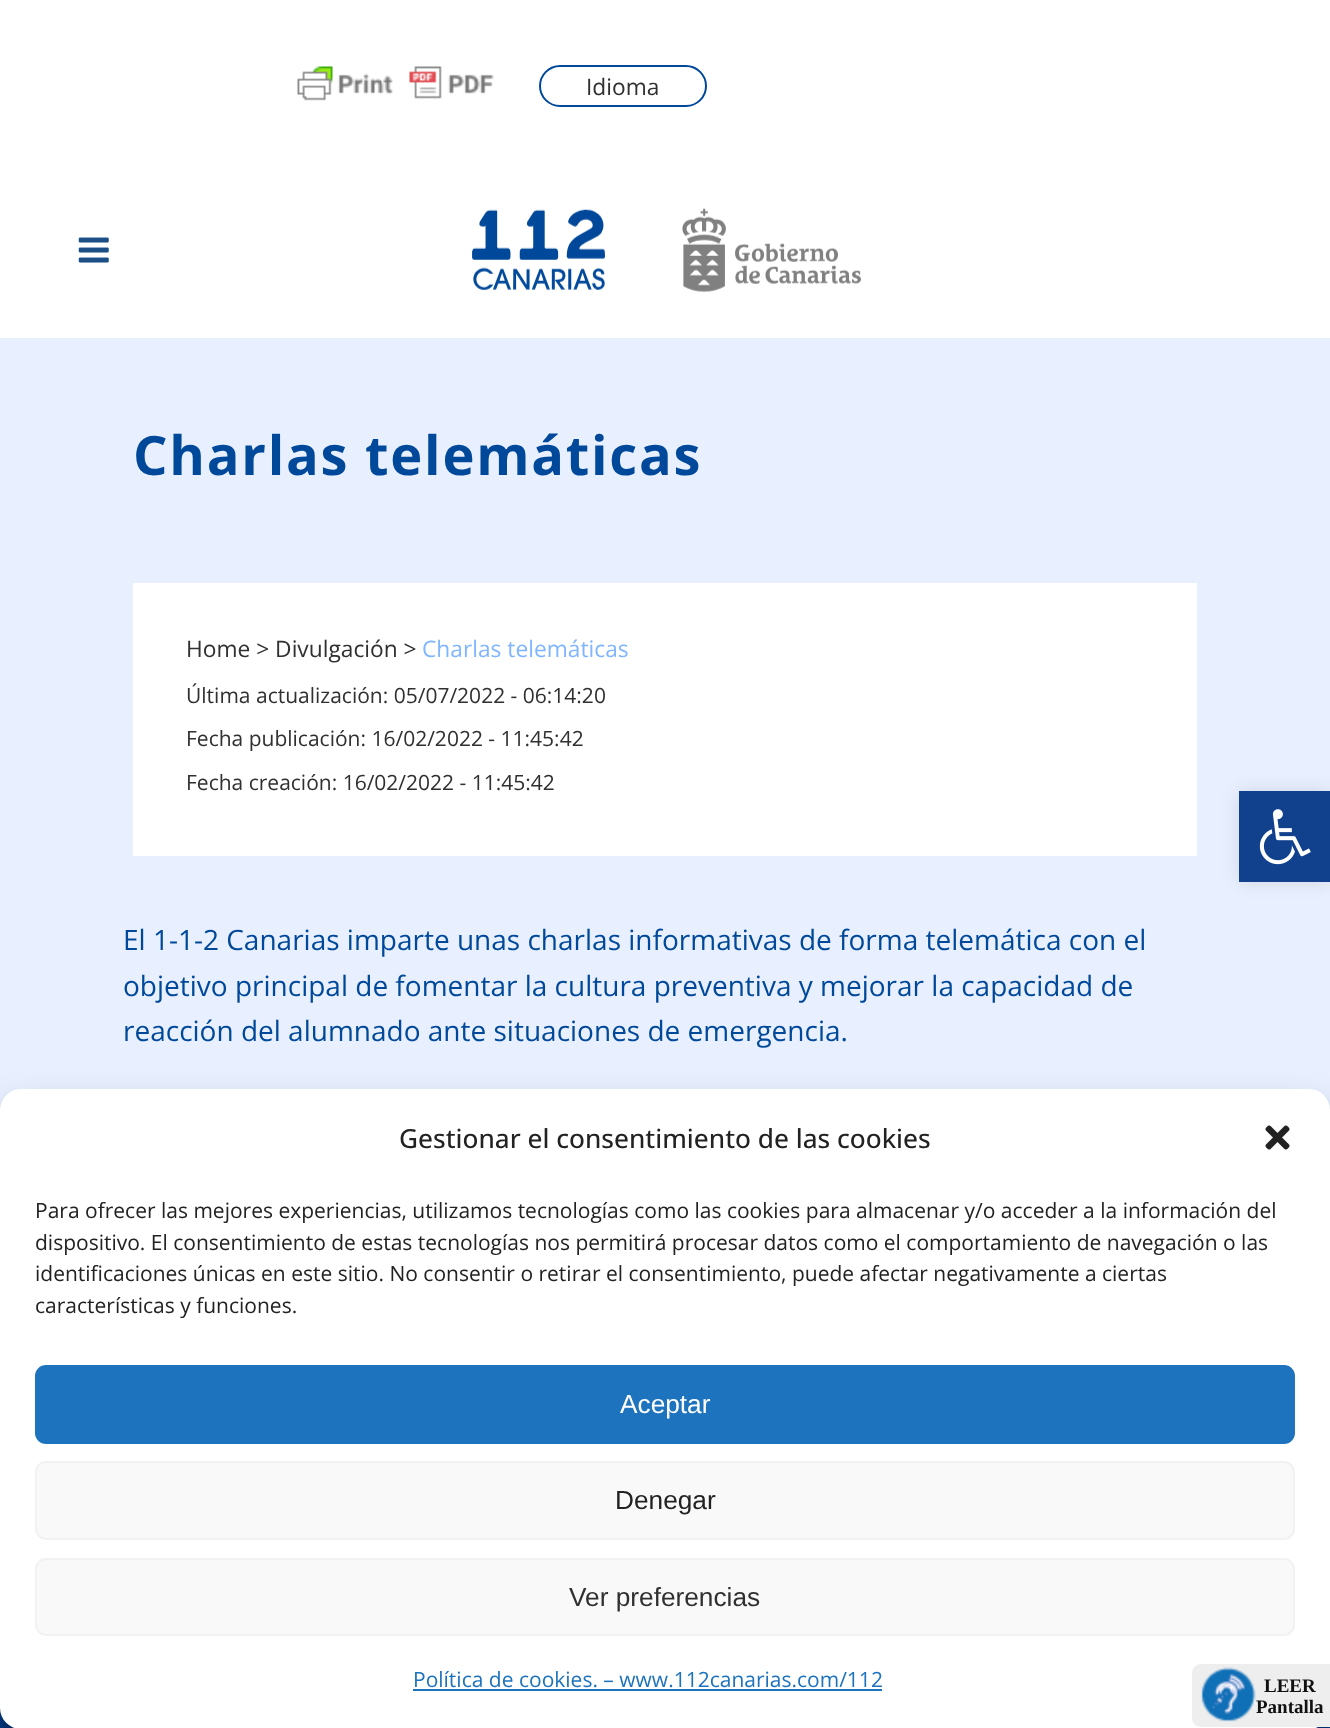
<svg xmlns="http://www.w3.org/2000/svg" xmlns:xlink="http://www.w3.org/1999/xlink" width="1330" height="1728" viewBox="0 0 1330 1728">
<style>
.cls-1{font:22.75px Open Sans;fill:#303030}
.cls-2{font:bold 54.25px Open Sans;letter-spacing:1.75px;fill:#00499a}
.cls-3{font:22.75px Open Sans;fill:#80b5ff}
.cls-4{font:21px Open Sans;fill:#303030}
.cls-5{font:28px Open Sans;fill:#00499a}
.cls-6{font:500 26.25px Open Sans;fill:#222222}
.cls-7{font:21px Open Sans;fill:#222222}
.cls-8{font:26.25px Liberation Sans;fill:#ffffff}
.cls-9{font:26.25px Liberation Sans;fill:#222222}
.cls-10{font:26.25px Liberation Sans;fill:#303030}
.cls-11{font:21px Open Sans;fill:#1e73be}
.cls-12{font:bold 19px Liberation Serif;fill:#111111}
</style>
<rect width="100%" height="100%" fill="#e8efff"/>
<rect fill="#ffffff" x="0" y="0" width="1330" height="338"/>
<image xlink:href="image0.png" x="78" y="237" width="31" height="26"/>
<image xlink:href="image1.png" x="472" y="208" width="389" height="84"/>
<image xlink:href="image2.png" x="297" y="66" width="197" height="35"/>
<rect fill="none" stroke="#00499a" stroke-width="2" x="540" y="66" width="166" height="40" rx="20"/>
<rect fill="#ffffff" x="133" y="583" width="1064" height="273"/>
<rect fill="#023e8f" x="0" y="1708" width="1330" height="20"/>
<rect fill="#000000" fill-opacity="0.1" filter="blur(9px)" x="1239" y="791" width="91" height="91"/>
<rect fill="#11408d" x="1239" y="791" width="91" height="91"/>
<image xlink:href="image3.png" x="1259" y="809" width="52" height="56"/>
<rect fill="#000000" fill-opacity="0.23" filter="blur(5px)" x="0" y="1099" width="1330" height="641" rx="21"/>
<rect fill="#000000" fill-opacity="0.19" filter="blur(17.5px)" x="0" y="1106" width="1330" height="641" rx="21"/>
<rect fill="#ffffff" x="0" y="1089" width="1330" height="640" rx="21"/>
<image xlink:href="image4.png" x="1265" y="1125" width="25" height="25"/>
<rect fill="#1e73be" stroke="#1e73be" stroke-width="2" x="36" y="1366" width="1258" height="77" rx="10"/>
<rect fill="#f9f9f9" stroke="#f2f2f2" stroke-width="2" x="36" y="1462" width="1258" height="77" rx="10"/>
<rect fill="#f9f9f9" stroke="#f2f2f2" stroke-width="2" x="36" y="1559" width="1258" height="76" rx="10"/>
<rect fill="#1e73be" x="413" y="1689" width="469" height="2"/>
<path fill="#eeeeee" d="M1201 1664H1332V1727H1201C1196 1727 1192 1723 1192 1718V1673C1192 1668 1196 1664 1201 1664Z"/>
<image xlink:href="image5.png" x="1201" y="1667" width="55" height="55"/>
<text class="cls-1" x="586" y="95">Idioma</text>
<text class="cls-2" x="133" y="475">Charlas telemáticas</text>
<text class="cls-1" x="186" y="657">Home &gt; Divulgación &gt;</text>
<text class="cls-3" x="422" y="657">Charlas telemáticas</text>
<text class="cls-4" x="186" y="703">Última actualización: 05/07/2022 - 06:14:20</text>
<text class="cls-4" x="186" y="746">Fecha publicación: 16/02/2022 - 11:45:42</text>
<text class="cls-4" x="186" y="790">Fecha creación: 16/02/2022 - 11:45:42</text>
<text class="cls-5"><tspan x="123" y="950">El 1-1-2 Canarias imparte unas charlas informativas de forma telemática con el</tspan><tspan x="123" y="996">objetivo principal de fomentar la cultura preventiva y mejorar la capacidad de</tspan><tspan x="123" y="1041">reacción del alumnado ante situaciones de emergencia.</tspan></text>
<text class="cls-6" x="399" y="1148">Gestionar el consentimiento de las cookies</text>
<text class="cls-7"><tspan x="35" y="1218">Para ofrecer las mejores experiencias, utilizamos tecnologías como las cookies para almacenar y/o acceder a la información del</tspan><tspan x="35" y="1250">dispositivo. El consentimiento de estas tecnologías nos permitirá procesar datos como el comportamiento de navegación o las</tspan><tspan x="35" y="1281">identificaciones únicas en este sitio. No consentir o retirar el consentimiento, puede afectar negativamente a ciertas</tspan><tspan x="35" y="1313">características y funciones.</tspan></text>
<text class="cls-8" x="620" y="1413">Aceptar</text>
<text class="cls-9" x="615" y="1509">Denegar</text>
<text class="cls-10" x="569" y="1606">Ver preferencias</text>
<text class="cls-11" x="413" y="1687">Política de cookies. – www.112canarias.com/112</text>
<text class="cls-12" x="1264" y="1692">LEER</text>
<text class="cls-12" x="1256" y="1713">Pantalla</text>
</svg>
